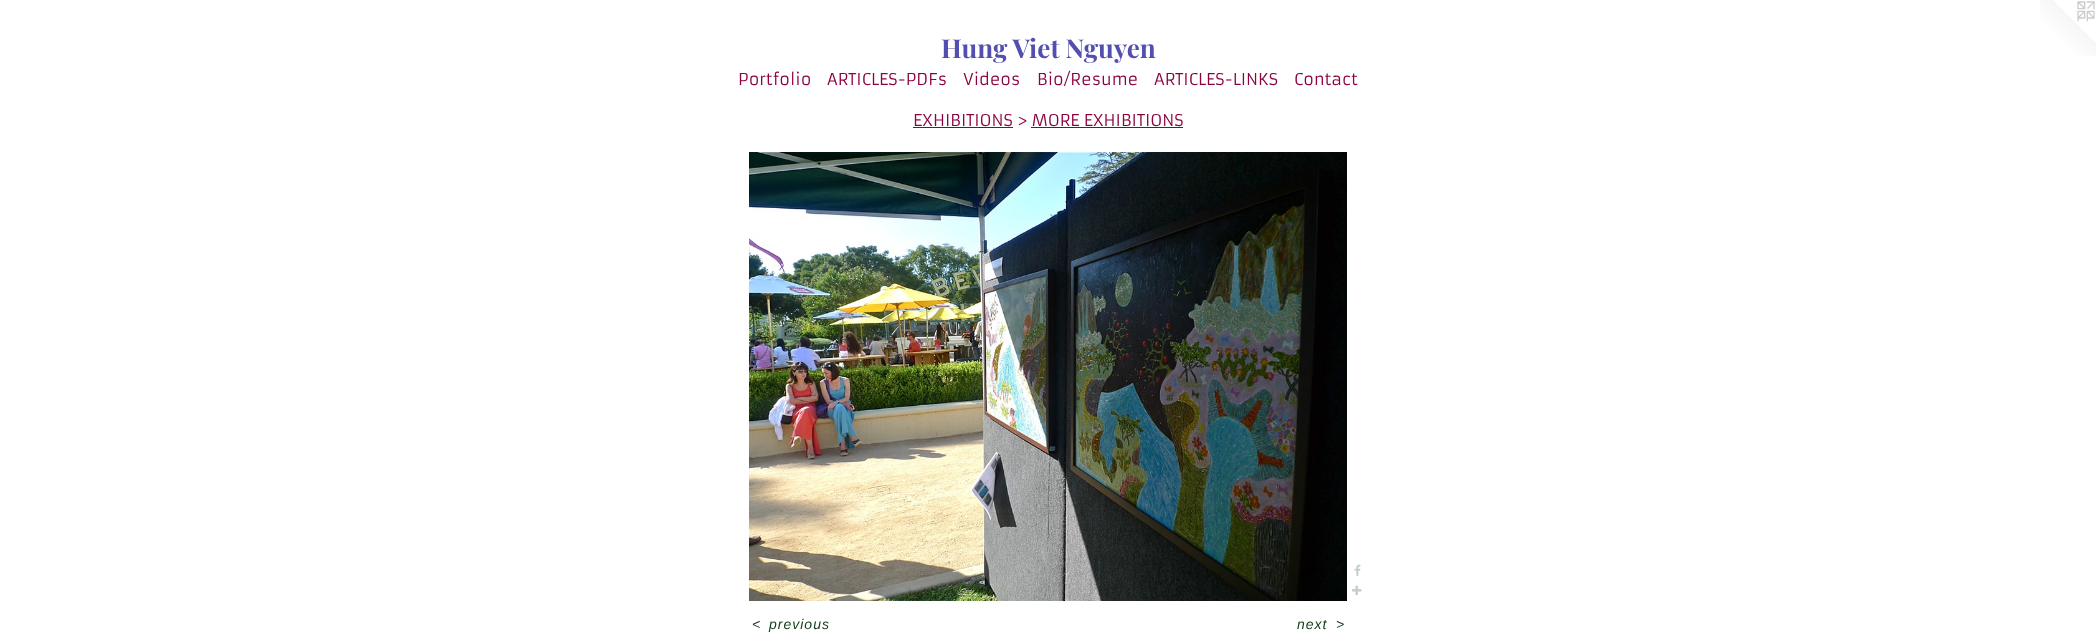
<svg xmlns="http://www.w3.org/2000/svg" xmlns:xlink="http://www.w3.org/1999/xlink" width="2096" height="641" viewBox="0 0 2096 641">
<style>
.cls-1{font:bold 26px Playfair Display;fill:#534fb0}
.cls-2{font:16px Armata;fill:#8b0441}
.cls-3{font:italic 14px Liberation Sans;letter-spacing:1px;fill:#16411c}
</style>
<rect width="100%" height="100%" fill="#ffffff"/>
<image xlink:href="image0.png" x="2040" y="0" width="56" height="56"/>
<rect fill="#8b0441" x="913" y="127" width="100" height="1"/>
<rect fill="#8b0441" x="1031" y="127" width="152" height="1"/>
<image xlink:href="image1.png" x="749" y="152" width="598" height="449"/>
<image xlink:href="image2.png" x="1354" y="564" width="7" height="12"/>
<image xlink:href="image3.png" x="1352" y="585" width="10" height="10"/>
<text class="cls-1" x="941" y="58">Hung Viet Nguyen</text>
<text class="cls-2" x="738" y="85">Portfolio</text>
<text class="cls-2" x="827" y="85">ARTICLES-PDFs</text>
<text class="cls-2" x="963" y="85">Videos</text>
<text class="cls-2" x="1037" y="85">Bio/Resume</text>
<text class="cls-2" x="1154" y="85">ARTICLES-LINKS</text>
<text class="cls-2" x="1294" y="85">Contact</text>
<text class="cls-2" x="913" y="126">EXHIBITIONS &gt; MORE EXHIBITIONS</text>
<text class="cls-3" x="752" y="629">&lt;</text>
<text class="cls-3" x="769" y="629">previous</text>
<text class="cls-3" x="1297" y="629">next</text>
<text class="cls-3" x="1336" y="629">&gt;</text>
</svg>
